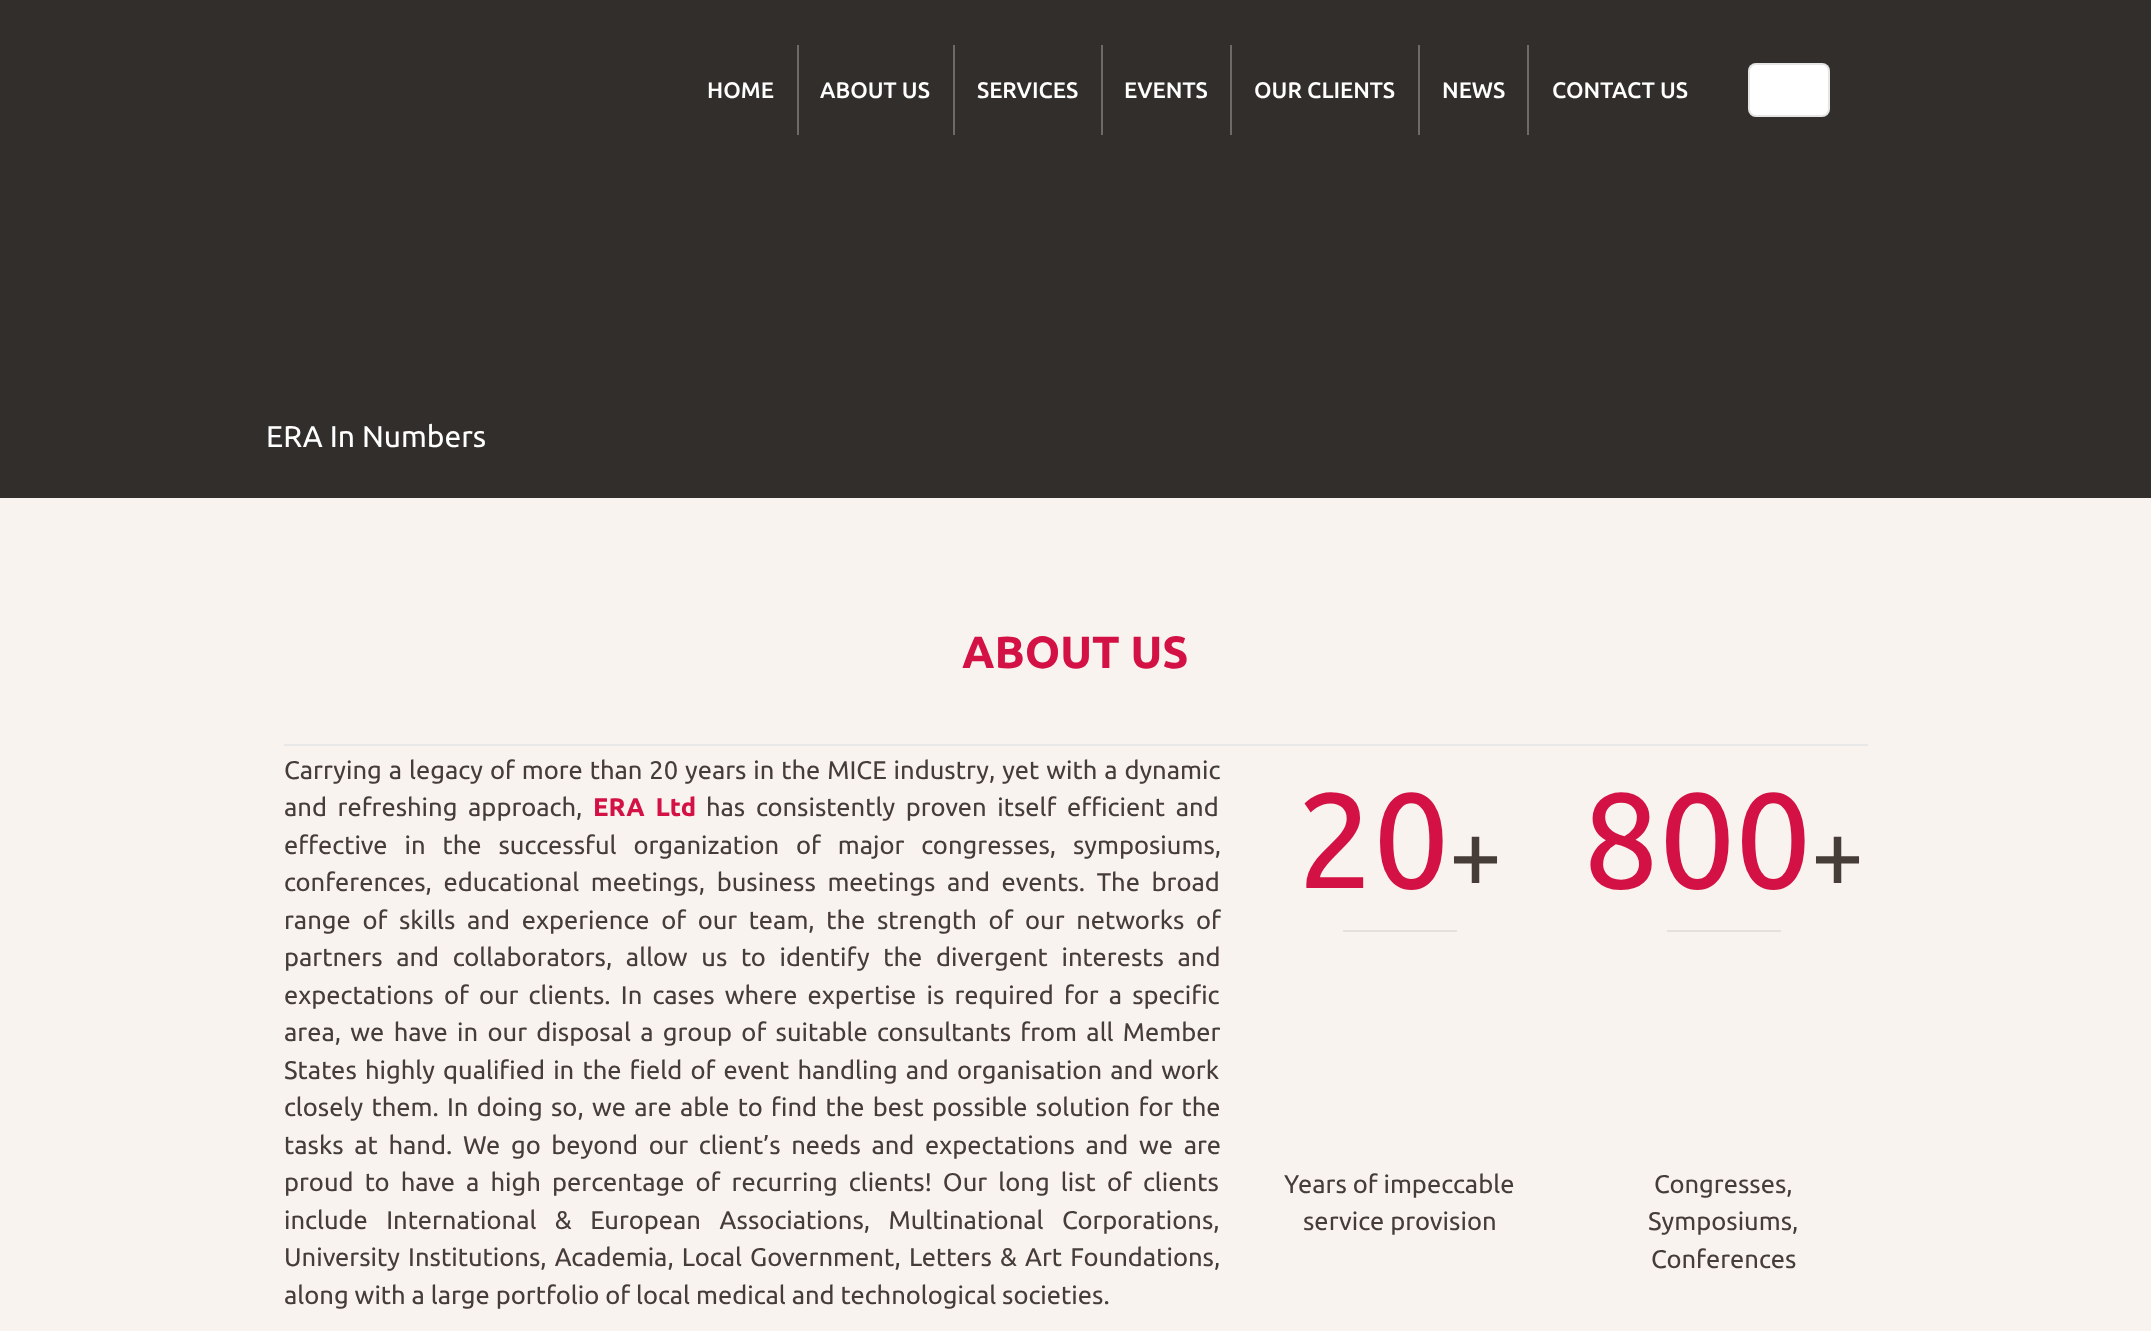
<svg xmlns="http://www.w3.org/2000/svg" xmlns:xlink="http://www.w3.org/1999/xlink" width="2151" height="1331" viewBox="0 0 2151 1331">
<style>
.cls-1{font:500 22.5px Ubuntu;fill:#ffffff}
.cls-2{font:30px Ubuntu;fill:#ffffff}
.cls-3{font:bold 45px Ubuntu;fill:#d31145}
.cls-4{font:25.5px Ubuntu;fill:#463c38}
.cls-5{font:bold 25.5px Ubuntu;fill:#d31145}
.cls-6{font:135px Ubuntu;fill:#d31145}
.cls-7{font:94px Ubuntu;fill:#463c38}
</style>
<rect width="100%" height="100%" fill="#f8f3ef"/>
<rect fill="#312e2b" x="0" y="0" width="2151" height="498"/>
<rect fill="#6d6b69" x="797" y="45" width="2" height="90"/>
<rect fill="#6d6b69" x="953" y="45" width="2" height="90"/>
<rect fill="#6d6b69" x="1101" y="45" width="2" height="90"/>
<rect fill="#6d6b69" x="1230" y="45" width="2" height="90"/>
<rect fill="#6d6b69" x="1418" y="45" width="2" height="90"/>
<rect fill="#6d6b69" x="1527" y="45" width="2" height="90"/>
<rect fill="#ffffff" x="1748" y="63" width="82" height="54" rx="8"/>
<rect fill="none" stroke="#000000" stroke-opacity="0.1" stroke-width="2" x="1749" y="64" width="80" height="52" rx="7"/>
<rect fill="#e8e8e8" x="284" y="744" width="1584" height="2"/>
<rect fill="#e4e0dc" x="1343" y="930" width="114" height="2"/>
<rect fill="#e4e0dc" x="1667" y="930" width="114" height="2"/>
<text class="cls-1" x="707" y="98">HOME</text>
<text class="cls-1" x="820" y="98">ABOUT US</text>
<text class="cls-1" x="977" y="98">SERVICES</text>
<text class="cls-1" x="1124" y="98">EVENTS</text>
<text class="cls-1" x="1254" y="98">OUR CLIENTS</text>
<text class="cls-1" x="1442" y="98">NEWS</text>
<text class="cls-1" x="1552" y="98">CONTACT US</text>
<text class="cls-2" x="266" y="447">ERA In Numbers</text>
<text class="cls-3" x="962" y="668">ABOUT US</text>
<text class="cls-4"><tspan x="284" y="779" word-spacing="1">Carrying a legacy of more than 20 years in the MICE industry, yet with a dynamic</tspan><tspan x="284" y="816" word-spacing="4.75">and refreshing approach,</tspan></text>
<text class="cls-5" x="593" y="816" word-spacing="4.75">ERA Ltd</text>
<text class="cls-4" x="706" y="816" word-spacing="4.75">has consistently proven itself efficient and</text>
<text class="cls-4"><tspan x="284" y="854" word-spacing="11">effective in the successful organization of major congresses, symposiums,</tspan><tspan x="284" y="891" word-spacing="5.75">conferences, educational meetings, business meetings and events. The broad</tspan><tspan x="284" y="929" word-spacing="5.75">range of skills and experience of our team, the strength of our networks of</tspan><tspan x="284" y="966" word-spacing="7.75">partners and collaborators, allow us to identify the divergent interests and</tspan><tspan x="284" y="1004" word-spacing="4.25">expectations of our clients. In cases where expertise is required for a specific</tspan><tspan x="284" y="1041" word-spacing="3.4">area, we have in our disposal a group of suitable consultants from all Member</tspan><tspan x="284" y="1079" word-spacing="2.25">States highly qualified in the field of event handling and organisation and work</tspan><tspan x="284" y="1116" word-spacing="2.4">closely them. In doing so, we are able to find the best possible solution for the</tspan><tspan x="284" y="1154" word-spacing="4.75">tasks at hand. We go beyond our client’s needs and expectations and we are</tspan><tspan x="284" y="1191" word-spacing="5.25">proud to have a high percentage of recurring clients! Our long list of clients</tspan><tspan x="284" y="1229" word-spacing="12.5">include International &amp; European Associations, Multinational Corporations,</tspan><tspan x="284" y="1266" word-spacing="2.25">University Institutions, Academia, Local Government, Letters &amp; Art Foundations,</tspan><tspan x="284" y="1304">along with a large portfolio of local medical and technological societies.</tspan></text>
<text class="cls-6" x="1297" y="888">20</text>
<text class="cls-7" x="1449" y="888">+</text>
<text class="cls-4" x="1284" y="1193">Years of impeccable</text>
<text class="cls-4" x="1303" y="1230">service provision</text>
<text class="cls-6" x="1583" y="888">800</text>
<text class="cls-7" x="1811" y="888">+</text>
<text class="cls-4" x="1654" y="1193">Congresses,</text>
<text class="cls-4" x="1648" y="1230">Symposiums,</text>
<text class="cls-4" x="1651" y="1268">Conferences</text>
</svg>
